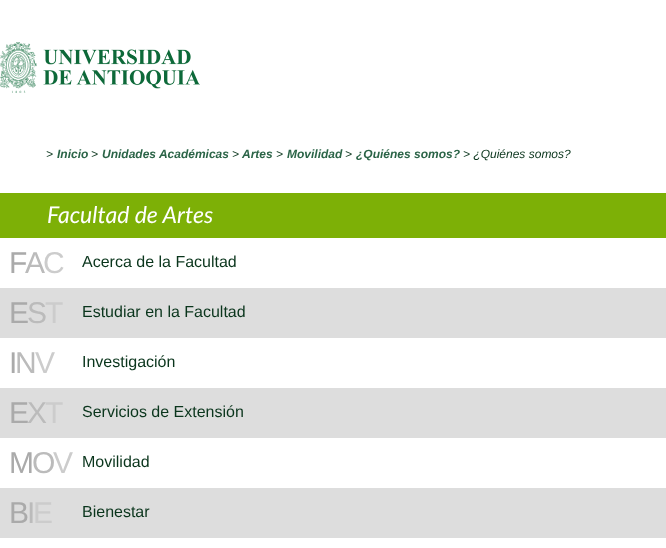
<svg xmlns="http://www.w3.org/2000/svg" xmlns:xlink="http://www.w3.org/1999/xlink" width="666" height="548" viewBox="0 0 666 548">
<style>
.cls-1{font:italic 12px Liberation Sans;fill:#0a351c}
.cls-2{font:italic bold 12px Liberation Sans;fill:#2b6447}
.cls-3{font:italic 23px Lato;fill:#ffffff}
.cls-4{font:30px Liberation Sans;fill:#aaaaaa}
.cls-5{font:30px Liberation Sans;fill:#bbbbbb}
.cls-6{font:30px Liberation Sans;fill:#cccccc}
.cls-7{font:16px Liberation Sans;fill:#0a351c}
</style>
<rect width="100%" height="100%" fill="#ffffff"/>
<image xlink:href="image0.png" x="0" y="42" width="200" height="51"/>
<rect fill="#7db006" x="0" y="193" width="666" height="45"/>
<rect fill="#dddddd" x="0" y="288" width="666" height="50"/>
<rect fill="#dddddd" x="0" y="388" width="666" height="50"/>
<rect fill="#dddddd" x="0" y="488" width="666" height="50"/>
<text class="cls-1" x="46" y="158">&gt;</text>
<text class="cls-2" x="57" y="158">Inicio</text>
<text class="cls-1" x="91" y="158">&gt;</text>
<text class="cls-2" x="102" y="158">Unidades Académicas</text>
<text class="cls-1" x="232" y="158">&gt;</text>
<text class="cls-2" x="242" y="158">Artes</text>
<text class="cls-1" x="276" y="158">&gt;</text>
<text class="cls-2" x="287" y="158">Movilidad</text>
<text class="cls-1" x="345" y="158">&gt;</text>
<text class="cls-2" x="356" y="158">¿Quiénes somos?</text>
<text class="cls-1" x="463" y="158">&gt; ¿Quiénes somos?</text>
<text class="cls-3" x="47" y="223">Facultad de Artes</text>
<text class="cls-4" x="9" y="273">F</text>
<text class="cls-5" x="25" y="273">A</text>
<text class="cls-6" x="43" y="273">C</text>
<text class="cls-7" x="82" y="267">Acerca de la Facultad</text>
<text class="cls-4" x="9" y="323">E</text>
<text class="cls-5" x="27" y="323">S</text>
<text class="cls-6" x="45" y="323">T</text>
<text class="cls-7" x="82" y="317">Estudiar en la Facultad</text>
<text class="cls-4" x="9" y="373">I</text>
<text class="cls-5" x="15" y="373">N</text>
<text class="cls-6" x="35" y="373">V</text>
<text class="cls-7" x="82" y="367">Investigación</text>
<text class="cls-4" x="9" y="423">E</text>
<text class="cls-5" x="27" y="423">X</text>
<text class="cls-6" x="45" y="423">T</text>
<text class="cls-7" x="82" y="417">Servicios de Extensión</text>
<text class="cls-4" x="9" y="473">M</text>
<text class="cls-5" x="32" y="473">O</text>
<text class="cls-6" x="53" y="473">V</text>
<text class="cls-7" x="82" y="467">Movilidad</text>
<text class="cls-4" x="9" y="523">B</text>
<text class="cls-5" x="27" y="523">I</text>
<text class="cls-6" x="33" y="523">E</text>
<text class="cls-7" x="82" y="517">Bienestar</text>
</svg>
